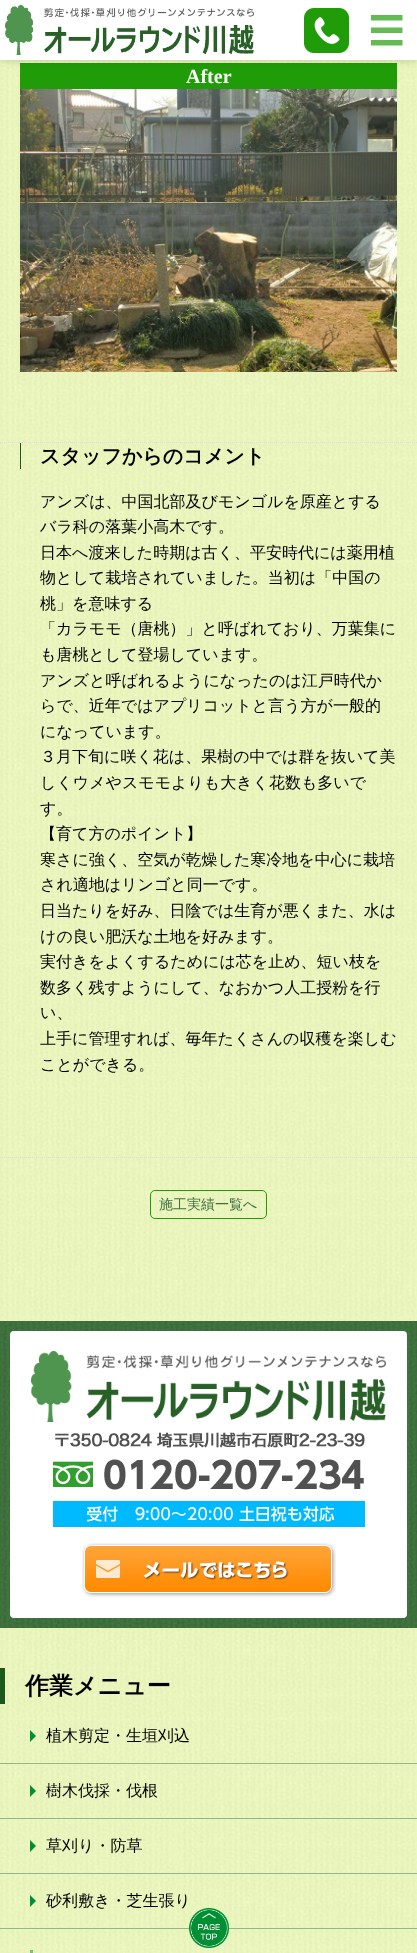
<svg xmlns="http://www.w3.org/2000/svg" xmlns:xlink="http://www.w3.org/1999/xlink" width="417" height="1953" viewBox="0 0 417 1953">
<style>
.cls-1{font:bold 20px Liberation Serif;fill:#ffffff}
.cls-2{font:bold 20px WenQuanYi Zen Hei;fill:#000000}
.cls-3{font:500 16px WenQuanYi Zen Hei;fill:#000000}
.cls-4{font:500 14px WenQuanYi Zen Hei;fill:#3d6f3d}
.cls-5{font:bold 24px WenQuanYi Zen Hei;fill:#000000}
</style>
<rect width="100%" height="100%" fill="#ffffff"/>
<image xlink:href="image3.png" x="0" y="60" width="417" height="1893"/>
<rect fill="#209c08" x="20" y="63" width="377" height="26"/>
<rect fill="#000000" fill-opacity="0.2" filter="blur(5px)" x="0" y="0" width="417" height="60"/>
<rect fill="#ffffff" x="0" y="0" width="417" height="60"/>
<image xlink:href="image0.png" x="5" y="5" width="249" height="50"/>
<image xlink:href="image1.png" x="304" y="8" width="45" height="45"/>
<image xlink:href="image2.png" x="371" y="15" width="32" height="31"/>
<path fill="none" stroke="#dddddd" stroke-dasharray="1 1" d="M0 442.5H417"/>
<image xlink:href="image4.png" x="20" y="89" width="377" height="283"/>
<path fill="none" stroke="#dddddd" stroke-dasharray="1 1" d="M0 1157.5H417"/>
<rect fill="#1c571c" x="20" y="443" width="1" height="26"/>
<rect fill="none" stroke="#209c08" x="150.5" y="1190.5" width="116" height="28" rx="4.5"/>
<image xlink:href="image5.png" x="0" y="1321" width="417" height="307"/>
<rect fill="#ffffff" x="10" y="1331" width="397" height="287" rx="4"/>
<image xlink:href="image6.png" x="31" y="1351" width="355" height="71"/>
<image xlink:href="image7.png" x="53" y="1432" width="312" height="95"/>
<image xlink:href="image8.png" x="82" y="1543" width="254" height="54"/>
<rect fill="#1c571c" x="0" y="1668" width="5" height="36"/>
<rect fill="#92b98b" x="0" y="1763" width="417" height="1"/>
<image xlink:href="image9.png" x="30" y="1730" width="6" height="12"/>
<rect fill="#92b98b" x="0" y="1818" width="417" height="1"/>
<image xlink:href="image10.png" x="30" y="1785" width="6" height="12"/>
<rect fill="#92b98b" x="0" y="1873" width="417" height="1"/>
<image xlink:href="image11.png" x="30" y="1840" width="6" height="12"/>
<rect fill="#92b98b" x="0" y="1928" width="417" height="1"/>
<image xlink:href="image12.png" x="30" y="1895" width="6" height="12"/>
<rect fill="#008f34" fill-opacity="0.5" x="30" y="1950" width="3" height="3"/>
<image xlink:href="image13.png" x="188" y="1908" width="41" height="40"/>
<text class="cls-1" x="186" y="83">After</text>
<text class="cls-2" x="40" y="463">スタッフからのコメント</text>
<text class="cls-3"><tspan x="40" y="507">アンズは、中国北部及びモンゴルを原産とする</tspan><tspan x="40" y="532">バラ科の落葉小高木です。</tspan><tspan x="40" y="558">日本へ渡来した時期は古く、平安時代には薬用植</tspan><tspan x="40" y="583">物として栽培されていました。当初は「中国の</tspan><tspan x="40" y="609">桃」を意味する</tspan><tspan x="40" y="634">「カラモモ（唐桃）」と呼ばれており、万葉集に</tspan><tspan x="40" y="660">も唐桃として登場しています。</tspan><tspan x="40" y="686">アンズと呼ばれるようになったのは江戸時代か</tspan><tspan x="40" y="711">らで、近年ではアプリコットと言う方が一般的</tspan><tspan x="40" y="737">になっています。</tspan><tspan x="40" y="762">３月下旬に咲く花は、果樹の中では群を抜いて美</tspan><tspan x="40" y="788">しくウメやスモモよりも大きく花数も多いで</tspan><tspan x="40" y="814">す。</tspan><tspan x="40" y="839">【育て方のポイント】</tspan><tspan x="40" y="865">寒さに強く、空気が乾燥した寒冷地を中心に栽培</tspan><tspan x="40" y="890">され適地はリンゴと同一です。</tspan><tspan x="40" y="916">日当たりを好み、日陰では生育が悪くまた、水は</tspan><tspan x="40" y="942">けの良い肥沃な土地を好みます。</tspan><tspan x="40" y="967">実付きをよくするためには芯を止め、短い枝を</tspan><tspan x="40" y="993">数多く残すようにして、なおかつ人工授粉を行</tspan><tspan x="40" y="1018">い、</tspan><tspan x="40" y="1044">上手に管理すれば、毎年たくさんの収穫を楽しむ</tspan><tspan x="40" y="1070">ことができる。</tspan></text>
<text class="cls-4" x="159" y="1209">施工実績一覧へ</text>
<text class="cls-5" x="25" y="1694">作業メニュー</text>
<text class="cls-3" x="46" y="1741">植木剪定・生垣刈込</text>
<text class="cls-3" x="46" y="1796">樹木伐採・伐根</text>
<text class="cls-3" x="46" y="1851">草刈り・防草</text>
<text class="cls-3" x="46" y="1906">砂利敷き・芝生張り</text>
</svg>
